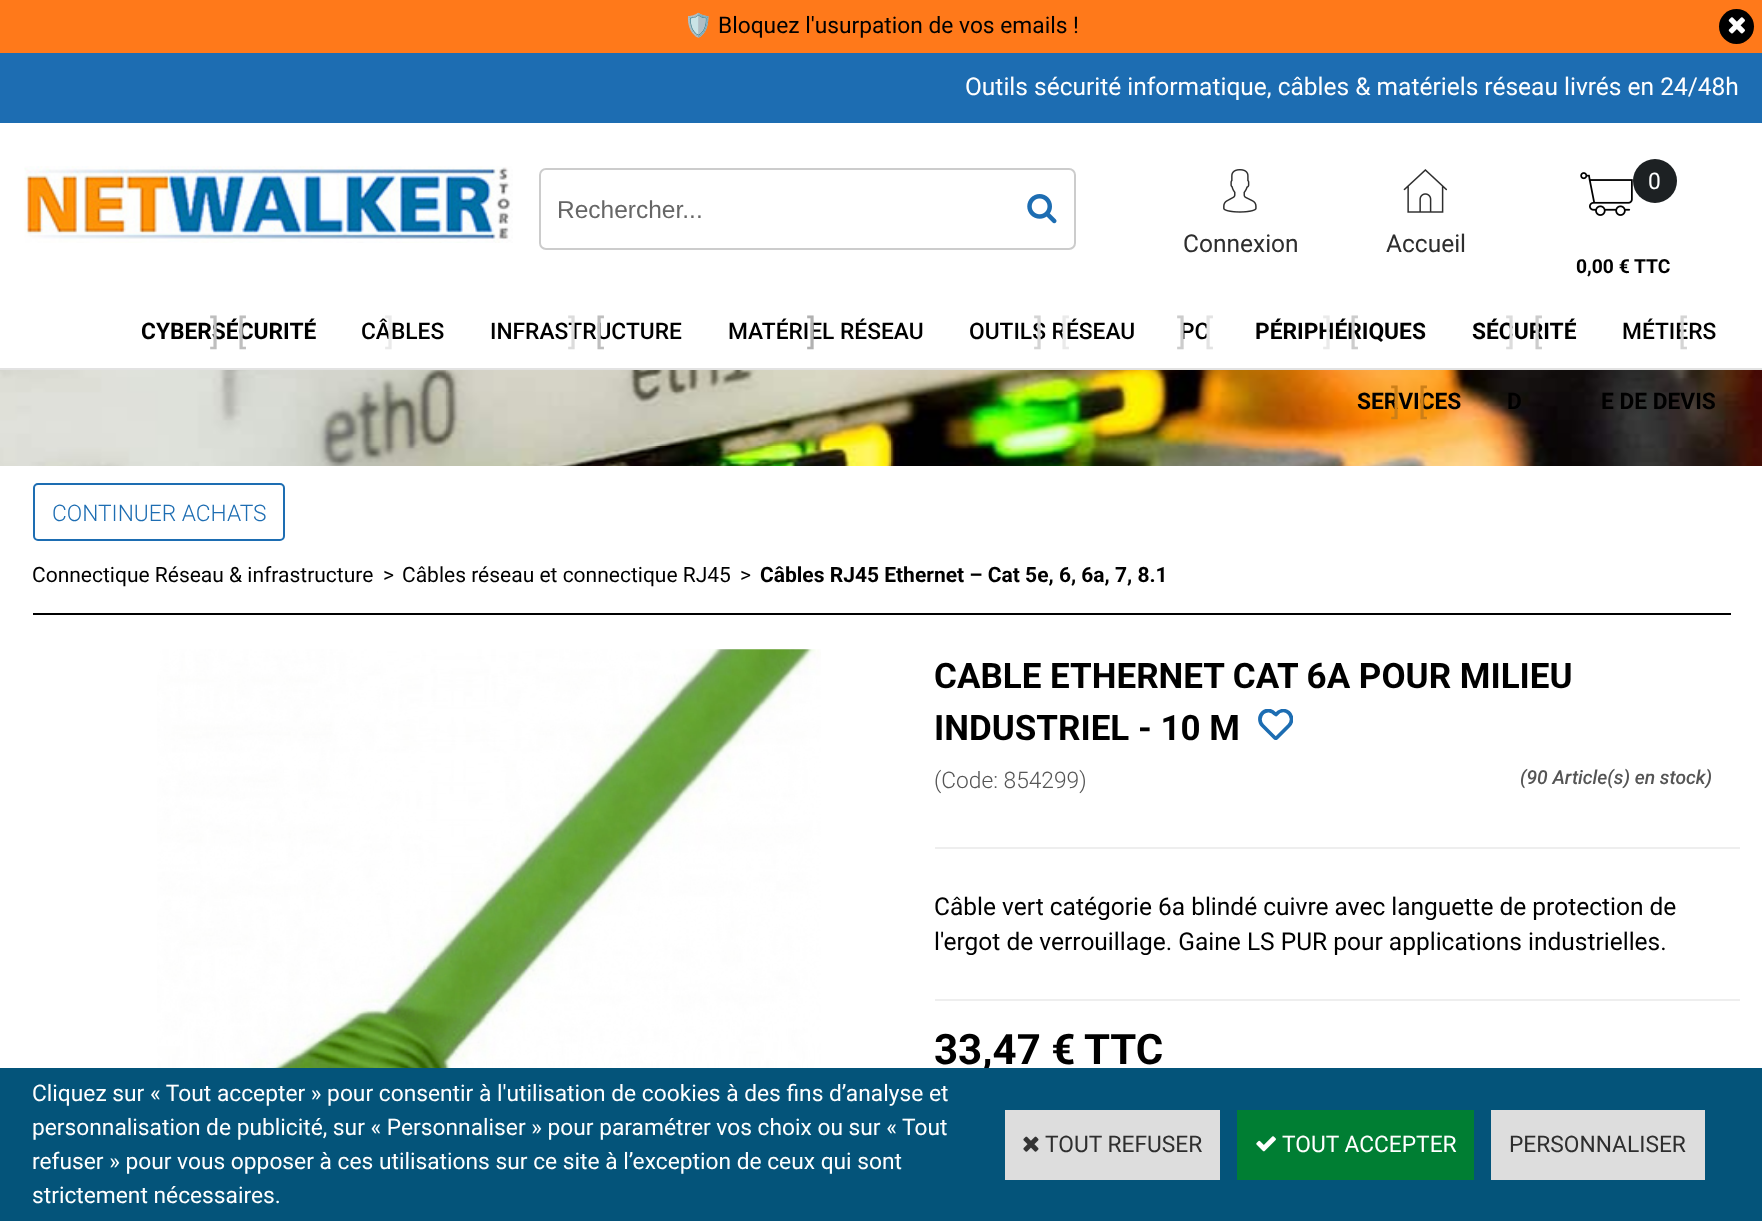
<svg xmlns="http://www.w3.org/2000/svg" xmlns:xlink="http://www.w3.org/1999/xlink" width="1762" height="1221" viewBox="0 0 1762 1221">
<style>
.cls-1{font:22.75px Noto Color Emoji;fill:#000000}
.cls-2{font:22.75px Roboto;fill:#000000}
.cls-3{font:24.5px Roboto;fill:#ffffff}
.cls-4{font:24.5px Liberation Sans;fill:#666666}
.cls-5{font:24.5px Roboto;fill:#2e2e2e}
.cls-6{font:22.75px Roboto;fill:#ffffff}
.cls-7{font:bold 19.25px Roboto;fill:#000000}
.cls-8{font:bold 22.75px Roboto;fill:#000000}
.cls-9{font:35px Roboto;fill:#bebebe}
.cls-10{font:500 22.75px Roboto;fill:#000000}
.cls-11{font:35px Roboto;fill:#eaeaea}
.cls-12{font:35px Roboto;fill:#dcdcdc}
.cls-13{font:35px Roboto;fill:#b1b1b1}
.cls-14{font:35px Roboto;fill:#d4d4d4}
.cls-15{font:35px Roboto;fill:#cccccc}
.cls-16{font:35px Roboto;fill:#e3e3e3}
.cls-17{font:35px Roboto;fill:#cc7f18}
.cls-18{font:300 22.75px Roboto;fill:#1d6db2}
.cls-19{font:21px Roboto;fill:#000000}
.cls-20{font:bold 21px Roboto;fill:#000000}
.cls-21{font:bold 35px Roboto;fill:#000000}
.cls-22{font:300 22.75px Roboto;fill:#555555}
.cls-23{font:italic 500 19.25px Roboto;fill:#555555}
.cls-24{font:24.5px Roboto;fill:#000000}
.cls-25{font:bold 42px Roboto;fill:#000000}
.cls-26{font:22.75px Roboto;fill:#2e2e2e}
</style>
<defs>
<clipPath id="clip1"><rect x="1258" y="709" width="35" height="31"/></clipPath>
</defs>
<rect width="100%" height="100%" fill="#ffffff"/>
<image xlink:href="image0.png" x="0" y="370" width="1762" height="96"/>
<rect fill="#ff791a" x="0" y="0" width="1762" height="53"/>
<circle fill="#000000" cx="1736.5" cy="26.5" r="17.5"/>
<image xlink:href="image1.png" x="1728" y="17" width="17" height="17"/>
<rect fill="#1d6db2" x="0" y="53" width="1762" height="70"/>
<rect fill="#e2e2e2" x="0" y="368" width="1762" height="2"/>
<image xlink:href="image2.png" x="24" y="166" width="489" height="77"/>
<rect fill="none" stroke="#cccccc" stroke-width="2" x="540" y="169" width="535" height="80" rx="6"/>
<image xlink:href="image3.png" x="1027" y="194" width="30" height="30"/>
<image xlink:href="image4.png" x="1223" y="169" width="34" height="44"/>
<image xlink:href="image5.png" x="1403" y="169" width="45" height="44"/>
<image xlink:href="image6.png" x="1580" y="172" width="53" height="44"/>
<circle fill="#1d2123" cx="1655" cy="181" r="22"/>
<rect fill="#000000" x="33" y="613" width="1698" height="2"/>
<rect fill="none" stroke="#1d6db2" stroke-width="2" x="34" y="484" width="250" height="56" rx="4"/>
<image xlink:href="image7.png" x="157" y="649" width="664" height="419"/>
<g clip-path="url(#clip1)">
<path fill="none" stroke="#1d6db2" stroke-width="3.7" stroke-linecap="round" stroke-linejoin="round" d="M1288.5 712.5C1284 709 1279 711 1276 714.5L1274.5 713.5C1271.5 710 1266.5 709.5 1263 712.5C1259 716 1259 722 1262.5 725.5L1274.5 737.5C1275 738.5 1276.5 738.5 1277 737.5L1289 725.5C1292.5 722 1292.5 716 1288.5 712.5Z"/>
</g>
<rect fill="#eeeeee" x="935" y="847" width="805" height="2"/>
<rect fill="#eeeeee" x="935" y="999" width="805" height="2"/>
<text class="cls-1" x="684" y="33">🛡️</text>
<text class="cls-2" x="718" y="33">Bloquez l'usurpation de vos emails !️</text>
<text class="cls-3" x="965" y="95">Outils sécurité informatique, câbles &amp; matériels réseau livrés en 24/48h</text>
<text class="cls-4" x="557" y="218">Rechercher...</text>
<text class="cls-5" x="1183" y="252">Connexion</text>
<text class="cls-5" x="1386" y="252">Accueil</text>
<text class="cls-6" x="1648" y="189">0</text>
<text class="cls-7" x="1576" y="273">0,00 €</text>
<text class="cls-7" x="1634" y="273">TTC</text>
<text class="cls-8" x="141" y="339">CYBERSÉCURITÉ</text>
<text class="cls-9" x="210" y="344">]</text>
<text class="cls-9" x="237" y="344">[</text>
<text class="cls-10" x="361" y="339">CÂBLES</text>
<text class="cls-11" x="385" y="344">]</text>
<text class="cls-10" x="490" y="339">INFRASTRUCTURE</text>
<text class="cls-12" x="568" y="344">]</text>
<text class="cls-9" x="595" y="344">[</text>
<text class="cls-10" x="728" y="339">MATÉRIEL RÉSEAU</text>
<text class="cls-13" x="807" y="344">]</text>
<text class="cls-10" x="969" y="339">OUTILS RÉSEAU</text>
<text class="cls-14" x="1034" y="344">]</text>
<text class="cls-11" x="1060" y="344">[</text>
<text class="cls-10" x="1180" y="339">PC</text>
<text class="cls-15" x="1177" y="344">]</text>
<text class="cls-16" x="1204" y="344">[</text>
<text class="cls-8" x="1255" y="339">PÉRIPHÉRIQUES</text>
<text class="cls-11" x="1323" y="344">]</text>
<text class="cls-15" x="1349" y="344">[</text>
<text class="cls-8" x="1472" y="339">SÉCURITÉ</text>
<text class="cls-12" x="1506" y="344">]</text>
<text class="cls-15" x="1533" y="344">[</text>
<text class="cls-10" x="1622" y="339">MÉTIERS</text>
<text class="cls-14" x="1678" y="344">[</text>
<text class="cls-8" x="1357" y="409">SERVICES</text>
<text class="cls-17" x="1391" y="414">]</text>
<text class="cls-17" x="1418" y="414">[</text>
<text class="cls-8" x="1507" y="409">D</text>
<text class="cls-8" x="1601" y="409">E DE DEVIS</text>
<text class="cls-18" x="52" y="521">CONTINUER ACHATS</text>
<text class="cls-19" x="32" y="582">Connectique Réseau &amp; infrastructure</text>
<text class="cls-19" x="383" y="582">&gt;</text>
<text class="cls-19" x="402" y="582">Câbles réseau et connectique RJ45</text>
<text class="cls-19" x="740" y="582">&gt;</text>
<text class="cls-20" x="760" y="582">Câbles RJ45 Ethernet – Cat 5e, 6, 6a, 7, 8.1</text>
<text class="cls-21"><tspan x="934" y="688">CABLE ETHERNET CAT 6A POUR MILIEU</tspan><tspan x="934" y="740">INDUSTRIEL - 10 M</tspan></text>
<text class="cls-22" x="934" y="788">(Code: 854299)</text>
<text class="cls-23" x="1520" y="784">(90 Article(s) en stock)</text>
<text class="cls-24"><tspan x="934" y="915">Câble vert catégorie 6a blindé cuivre avec languette de protection de</tspan><tspan x="934" y="950">l'ergot de verrouillage. Gaine LS PUR pour applications industrielles.</tspan></text>
<text class="cls-25" x="934" y="1064">33,47 €</text>
<text class="cls-25" x="1084" y="1064">TTC</text>
<rect fill="#04547a" x="0" y="1068" width="1762" height="153"/>
<text class="cls-6"><tspan x="32" y="1101">Cliquez sur « Tout accepter » pour consentir à l'utilisation de cookies à des fins d’analyse et</tspan><tspan x="32" y="1135">personnalisation de publicité, sur « Personnaliser » pour paramétrer vos choix ou sur « Tout</tspan><tspan x="32" y="1169">refuser » pour vous opposer à ces utilisations sur ce site à l’exception de ceux qui sont</tspan><tspan x="32" y="1203">strictement nécessaires.</tspan></text>
<rect fill="#dddddd" x="1005" y="1110" width="215" height="70"/>
<image xlink:href="image8.png" x="1023" y="1136" width="16" height="16"/>
<text class="cls-26" x="1045" y="1152">TOUT REFUSER</text>
<rect fill="#007e33" x="1237" y="1110" width="237" height="70"/>
<image xlink:href="image9.png" x="1256" y="1136" width="20" height="16"/>
<text class="cls-6" x="1282" y="1152">TOUT ACCEPTER</text>
<rect fill="#dddddd" x="1491" y="1110" width="214" height="70"/>
<text class="cls-26" x="1509" y="1152">PERSONNALISER</text>
</svg>
